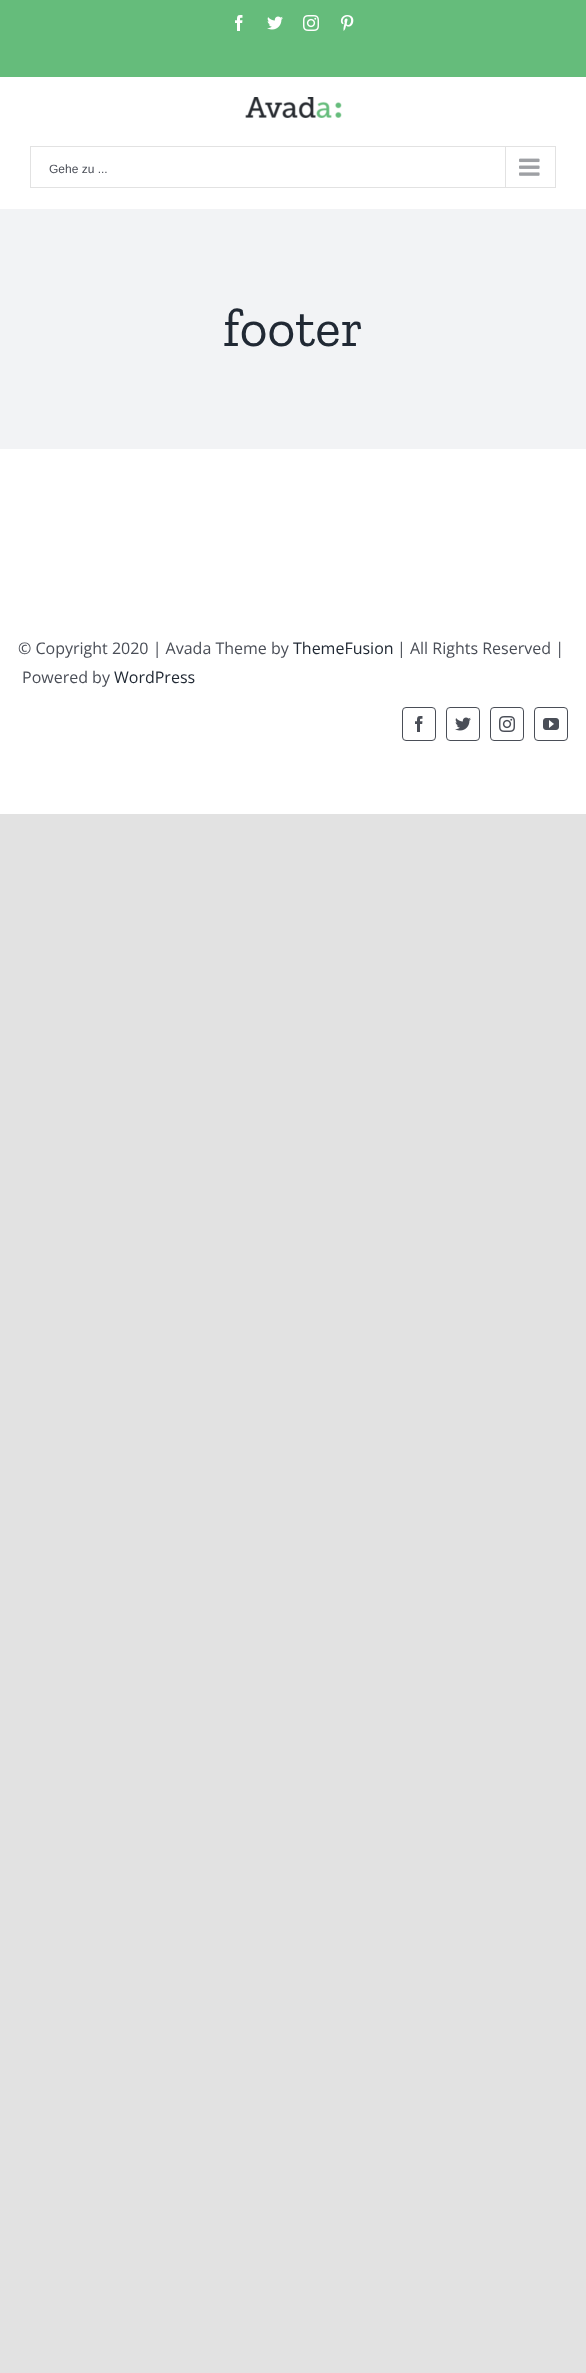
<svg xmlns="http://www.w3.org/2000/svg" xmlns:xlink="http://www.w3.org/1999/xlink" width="586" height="2373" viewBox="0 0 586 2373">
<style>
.cls-1{font:12px Liberation Sans;fill:#4a4e57}
.cls-2{font:54px Zilla Slab;fill:#212934}
.cls-3{font:16px Open Sans;fill:#4a4e57}
.cls-4{font:16px Open Sans;fill:#212934}
</style>
<rect width="100%" height="100%" fill="#e2e2e2"/>
<rect fill="#ffffff" x="0" y="77" width="586" height="737"/>
<rect fill="#65bc7b" x="0" y="0" width="586" height="77"/>
<image xlink:href="image0.png" x="235" y="15" width="8" height="16"/>
<image xlink:href="image1.png" x="267" y="16" width="16" height="14"/>
<image xlink:href="image2.png" x="303" y="15" width="16" height="16"/>
<image xlink:href="image3.png" x="340" y="15" width="14" height="16"/>
<image xlink:href="image4.png" x="245" y="97" width="97" height="21"/>
<rect fill="none" stroke="#e2e2e2" x="30.5" y="146.5" width="525" height="41"/>
<rect fill="#e2e2e2" x="505" y="147" width="1" height="40"/>
<image xlink:href="image5.png" x="519" y="158" width="21" height="18"/>
<rect fill="#f2f3f5" x="0" y="209" width="586" height="240"/>
<rect fill="none" stroke="#4a4e57" x="402.5" y="707.5" width="33" height="33" rx="3.5"/>
<image xlink:href="image6.png" x="415" y="716" width="8" height="16"/>
<rect fill="none" stroke="#4a4e57" x="446.5" y="707.5" width="33" height="33" rx="3.5"/>
<image xlink:href="image7.png" x="455" y="717" width="16" height="14"/>
<rect fill="none" stroke="#4a4e57" x="490.5" y="707.5" width="33" height="33" rx="3.5"/>
<image xlink:href="image8.png" x="499" y="716" width="16" height="16"/>
<rect fill="none" stroke="#4a4e57" x="534.5" y="707.5" width="33" height="33" rx="3.5"/>
<image xlink:href="image9.png" x="543" y="718" width="16" height="12"/>
<text class="cls-1" x="49" y="173">Gehe zu ...</text>
<text class="cls-2" x="223" y="346">footer</text>
<text class="cls-3" x="18" y="654">© Copyright 2020 | Avada Theme by</text>
<text class="cls-4" x="293" y="654">ThemeFusion</text>
<text class="cls-3" x="397" y="654">| All Rights Reserved |</text>
<text class="cls-3" x="22" y="683">Powered by</text>
<text class="cls-4" x="114" y="683">WordPress</text>
</svg>
